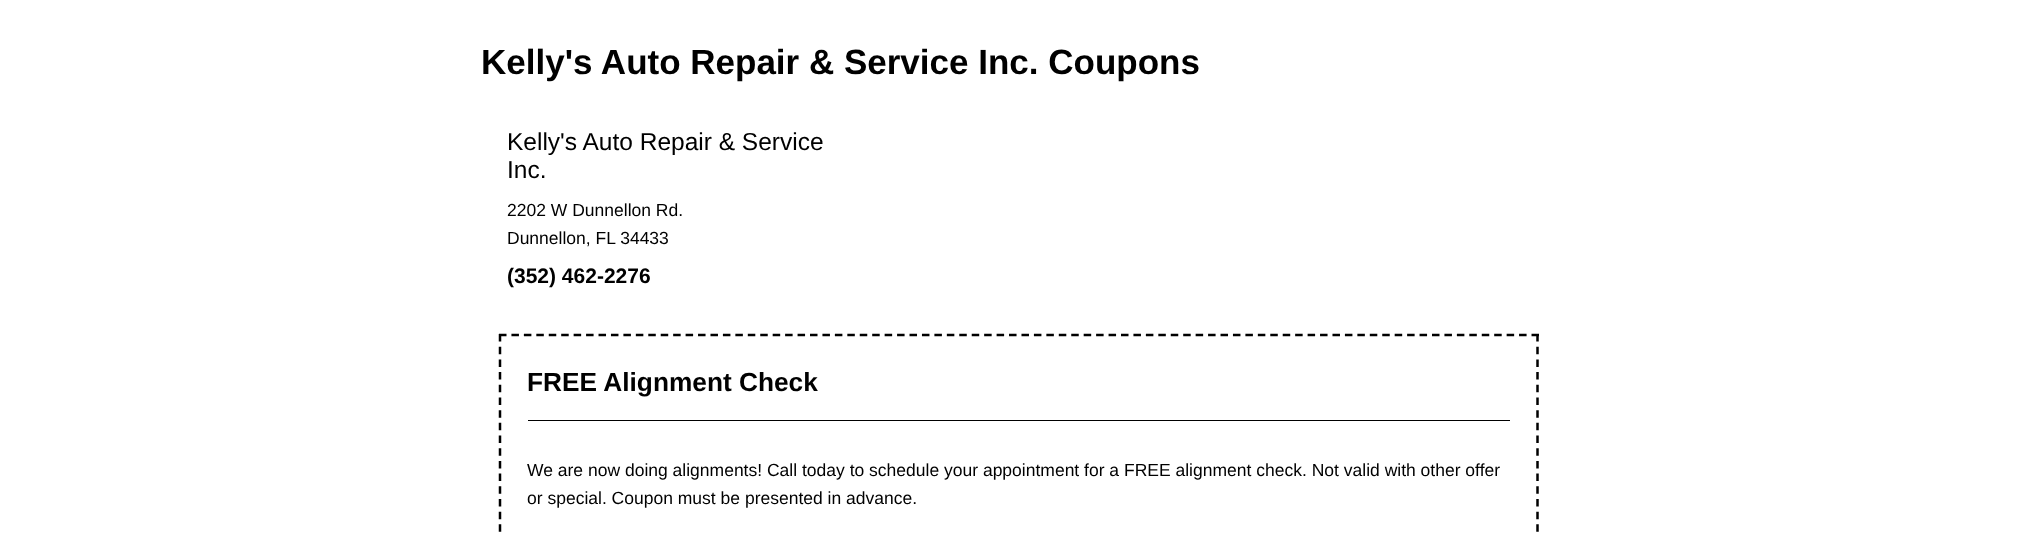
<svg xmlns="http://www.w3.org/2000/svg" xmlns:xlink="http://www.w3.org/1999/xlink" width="2037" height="537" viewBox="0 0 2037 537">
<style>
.cls-1{font:bold 35px Liberation Sans;fill:#000000}
.cls-2{font:24.5px Liberation Sans;fill:#000000}
.cls-3{font:17.5px Liberation Sans;fill:#000000}
.cls-4{font:bold 21px Liberation Sans;fill:#000000}
.cls-5{font:bold 26.25px Liberation Sans;fill:#000000}
</style>
<rect width="100%" height="100%" fill="#ffffff"/>
<path fill="none" stroke="#000000" stroke-width="2.5" stroke-dasharray="7.5 4.94" d="M499 335H1539"/>
<path fill="none" stroke="#000000" stroke-width="2.5" stroke-dasharray="7.5 5.19" d="M1537.5 334V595"/>
<path fill="none" stroke="#000000" stroke-width="2.5" stroke-dasharray="7.5 5.19" d="M500 334V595"/>
<rect fill="#000000" x="528" y="420" width="982" height="1"/>
<text class="cls-1" x="481" y="74">Kelly's Auto Repair &amp; Service Inc. Coupons</text>
<text class="cls-2"><tspan x="507" y="150">Kelly's Auto Repair &amp; Service</tspan><tspan x="507" y="178">Inc.</tspan></text>
<text class="cls-3"><tspan x="507" y="216">2202 W Dunnellon Rd.</tspan><tspan x="507" y="244">Dunnellon, FL 34433</tspan></text>
<text class="cls-4" x="507" y="283">(352) 462-2276</text>
<text class="cls-5" x="527" y="391">FREE Alignment Check</text>
<text class="cls-3"><tspan x="527" y="476">We are now doing alignments! Call today to schedule your appointment for a FREE alignment check. Not valid with other offer</tspan><tspan x="527" y="504">or special. Coupon must be presented in advance.</tspan></text>
</svg>
